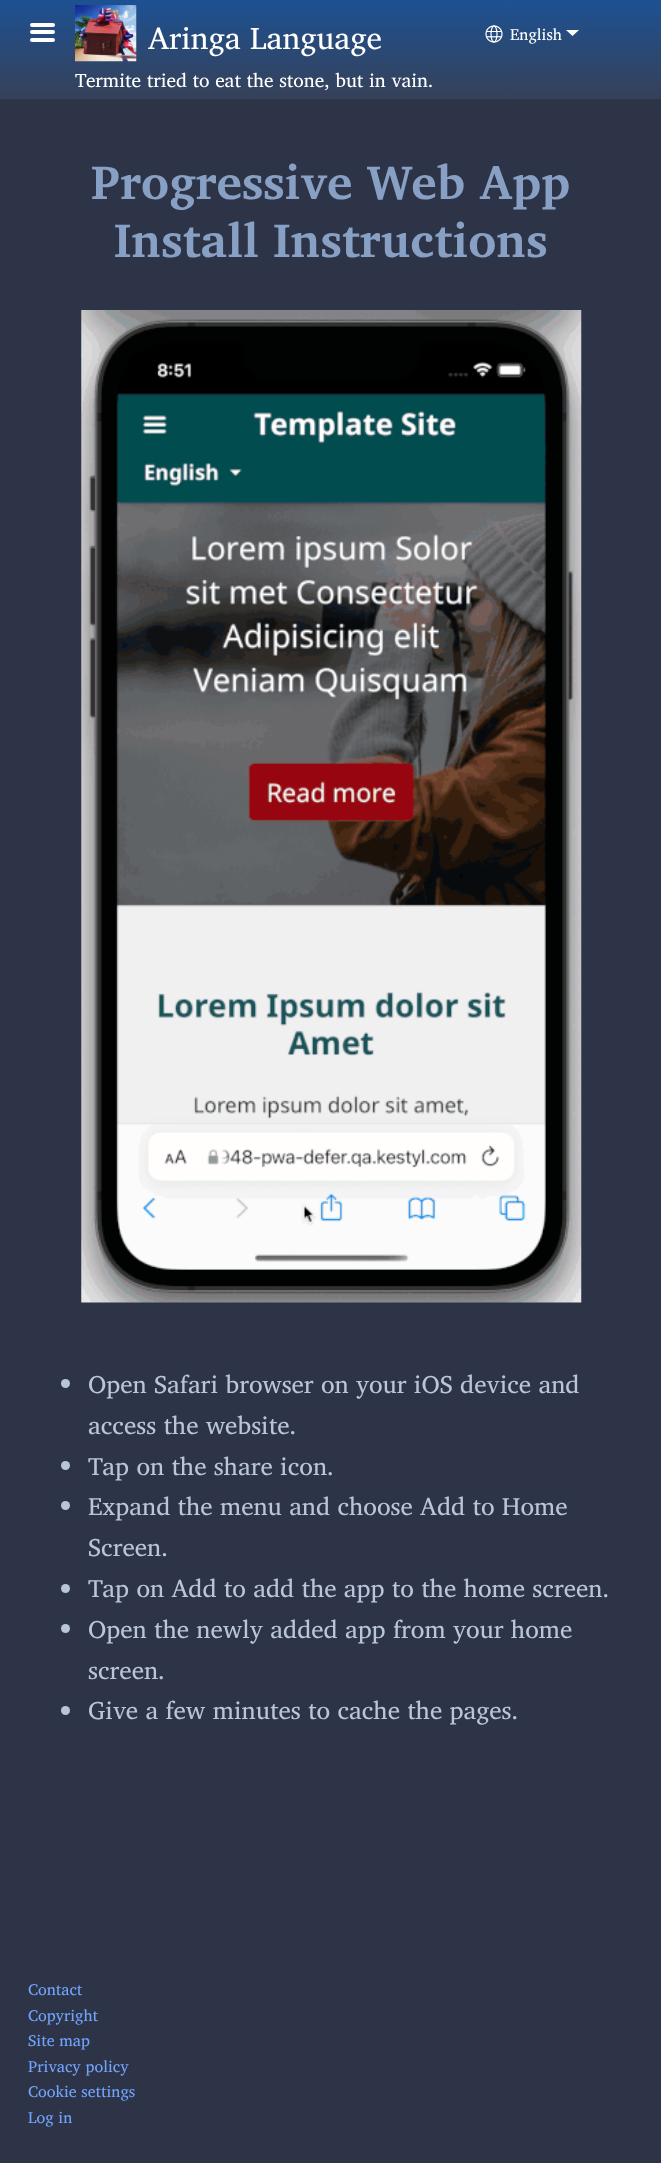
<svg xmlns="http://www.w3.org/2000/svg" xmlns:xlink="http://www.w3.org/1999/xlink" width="661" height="2163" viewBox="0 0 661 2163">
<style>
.cls-1{font:31.25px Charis;fill:#fffffe}
.cls-2{font:19.25px Charis;fill:#fffffe}
.cls-3{font:16px Charis;fill:#fffffe}
.cls-4{font:bold 48px Charis;fill:#88a0c4}
.cls-5{font:25px Charis;fill:#b9c5da}
.cls-6{font:16px Charis;fill:#72a4fd}
</style>
<defs>
<linearGradient id="g1" gradientUnits="userSpaceOnUse" x1="331" y1="0" x2="331" y2="99"><stop offset="0" stop-color="#1d5192"/><stop offset="1" stop-color="#364159"/></linearGradient>
</defs>
<rect width="100%" height="100%" fill="#2d3448"/>
<rect fill="url(#g1)" x="0" y="0" width="661" height="99"/>
<rect fill="#fffffe" x="30" y="23" width="25" height="4" rx="2"/>
<rect fill="#fffffe" x="30" y="30" width="25" height="4" rx="2"/>
<rect fill="#fffffe" x="30" y="38" width="25" height="4" rx="2"/>
<image xlink:href="image0.png" x="75" y="5" width="62" height="57"/>
<image xlink:href="image1.png" x="485" y="25" width="18" height="18"/>
<path fill="#fffffe" d="M566 30H579L572.5 36Z"/>
<image xlink:href="image2.png" x="81" y="310" width="501" height="993"/>
<circle fill="#b9c5da" cx="65.5" cy="1383.5" r="4.5"/>
<circle fill="#b9c5da" cx="65.5" cy="1465.5" r="4.5"/>
<circle fill="#b9c5da" cx="65.5" cy="1505.5" r="4.5"/>
<circle fill="#b9c5da" cx="65.5" cy="1588.5" r="4.5"/>
<circle fill="#b9c5da" cx="65.5" cy="1628.5" r="4.5"/>
<circle fill="#b9c5da" cx="65.5" cy="1710.5" r="4.5"/>
<text class="cls-1" x="148" y="49">Aringa Language</text>
<text class="cls-2" x="75" y="87">Termite tried to eat the stone, but in vain.</text>
<text class="cls-3" x="510" y="40">English</text>
<text class="cls-4" x="91" y="199">Progressive Web App</text>
<text class="cls-4" x="114" y="257">Install Instructions</text>
<text class="cls-5"><tspan x="88" y="1393">Open Safari browser on your iOS device and</tspan><tspan x="88" y="1434">access the website.</tspan><tspan x="88" y="1475">Tap on the share icon.</tspan><tspan x="88" y="1515">Expand the menu and choose Add to Home</tspan><tspan x="88" y="1556">Screen.</tspan><tspan x="88" y="1597">Tap on Add to add the app to the home screen.</tspan><tspan x="88" y="1638">Open the newly added app from your home</tspan><tspan x="88" y="1679">screen.</tspan><tspan x="88" y="1719">Give a few minutes to cache the pages.</tspan></text>
<text class="cls-6"><tspan x="28" y="1995">Contact</tspan><tspan x="28" y="2021">Copyright</tspan><tspan x="28" y="2046">Site map</tspan><tspan x="28" y="2072">Privacy policy</tspan><tspan x="28" y="2097">Cookie settings</tspan><tspan x="28" y="2123">Log in</tspan></text>
</svg>
